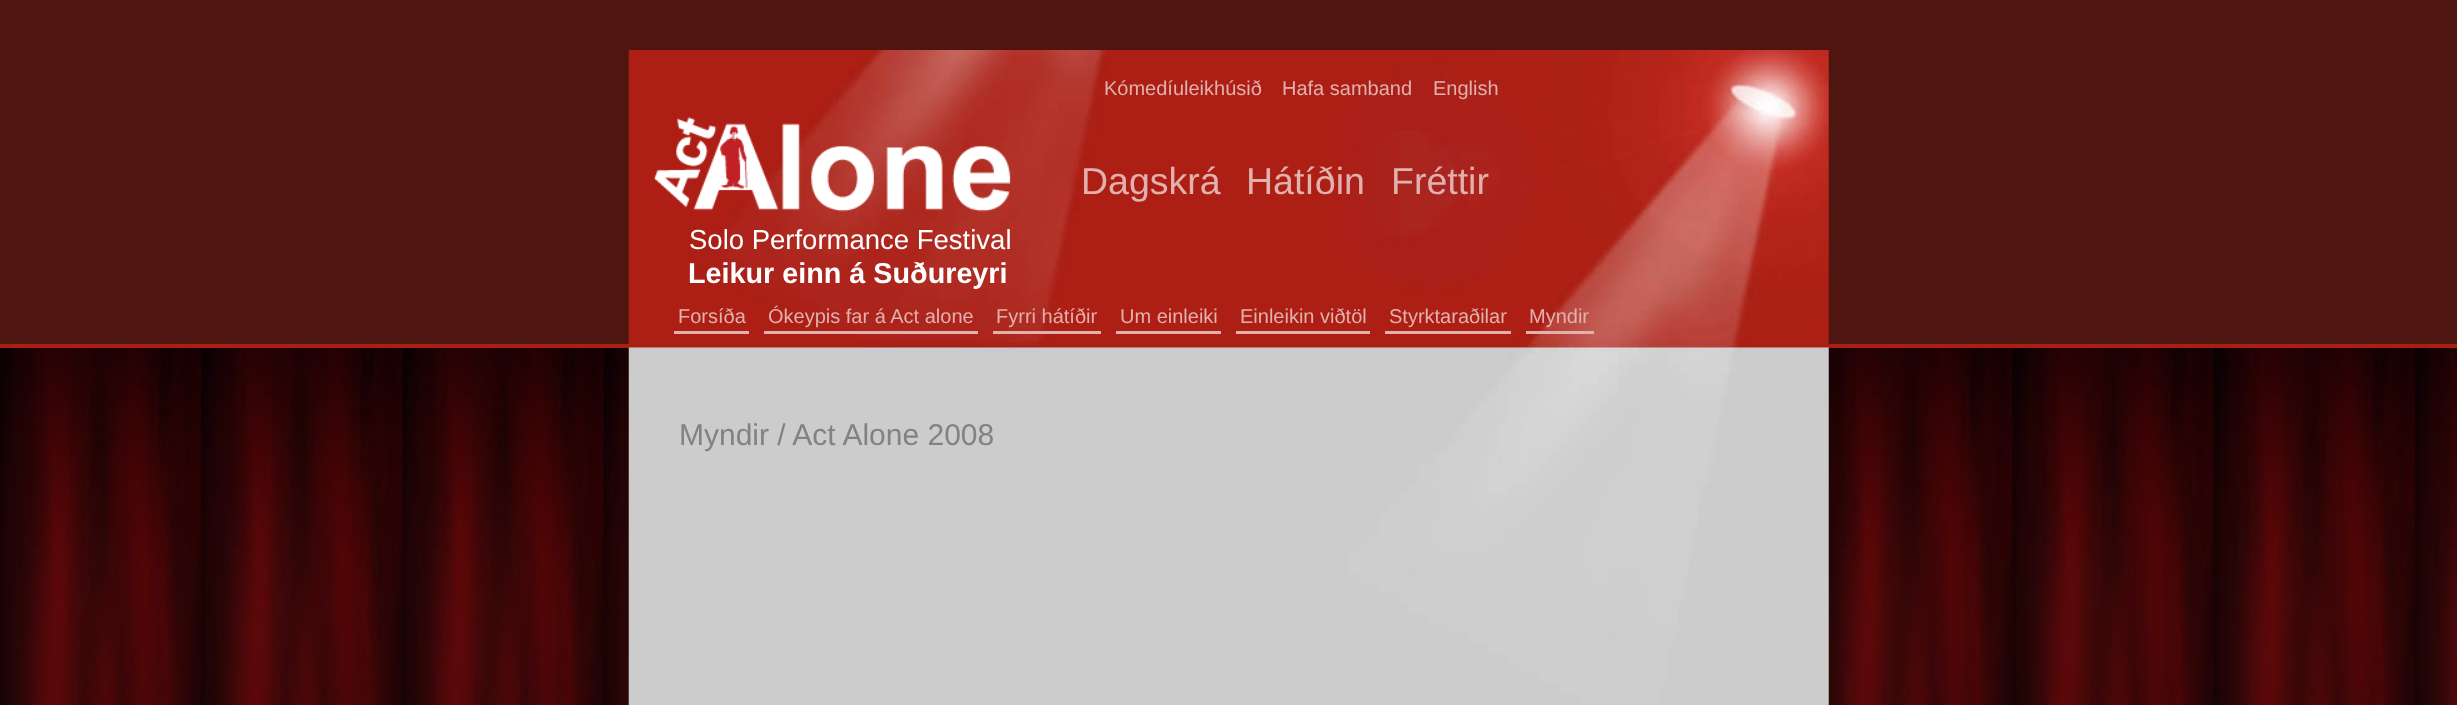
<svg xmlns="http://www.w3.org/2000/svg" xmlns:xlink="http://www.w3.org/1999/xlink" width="2457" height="705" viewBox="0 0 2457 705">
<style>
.cls-1{font:20px Liberation Sans;fill:#e1b1ad}
.cls-2{font:37.5px Liberation Sans;fill:#e1b1ad}
.cls-3{font:27.5px Liberation Sans;fill:#ffffff}
.cls-4{font:bold 28.75px Liberation Sans;fill:#ffffff}
.cls-5{font:30px Liberation Sans;fill:#828282}
</style>
<rect width="100%" height="100%" fill="#4f1511"/>
<image xlink:href="image0.png" x="628" y="50" width="1201" height="294"/>
<image xlink:href="image1.png" x="653" y="117" width="358" height="95"/>
<rect fill="#e1b1ad" x="674" y="331" width="75" height="3"/>
<rect fill="#e1b1ad" x="764" y="331" width="214" height="3"/>
<rect fill="#e1b1ad" x="993" y="331" width="108" height="3"/>
<rect fill="#e1b1ad" x="1116" y="331" width="105" height="3"/>
<rect fill="#e1b1ad" x="1236" y="331" width="134" height="3"/>
<rect fill="#e1b1ad" x="1385" y="331" width="126" height="3"/>
<rect fill="#e1b1ad" x="1526" y="331" width="68" height="3"/>
<image xlink:href="image2.png" x="0" y="348" width="2457" height="357"/>
<rect fill="#aa1f14" x="0" y="344" width="2457" height="4"/>
<image xlink:href="image3.png" x="628" y="343" width="1201" height="362"/>
<text class="cls-1" x="1104" y="95">Kómedíuleikhúsið</text>
<text class="cls-1" x="1282" y="95">Hafa samband</text>
<text class="cls-1" x="1433" y="95">English</text>
<text class="cls-2" x="1081" y="194">Dagskrá</text>
<text class="cls-2" x="1246" y="194">Hátíðin</text>
<text class="cls-2" x="1391" y="194">Fréttir</text>
<text class="cls-3" x="689" y="249">Solo Performance Festival</text>
<text class="cls-4" x="688" y="283">Leikur einn á Suðureyri</text>
<text class="cls-1" x="678" y="323">Forsíða</text>
<text class="cls-1" x="768" y="323">Ókeypis far á Act alone</text>
<text class="cls-1" x="996" y="323">Fyrri hátíðir</text>
<text class="cls-1" x="1120" y="323">Um einleiki</text>
<text class="cls-1" x="1240" y="323">Einleikin viðtöl</text>
<text class="cls-1" x="1389" y="323">Styrktaraðilar</text>
<text class="cls-1" x="1529" y="323">Myndir</text>
<text class="cls-5" x="679" y="445">Myndir / Act Alone 2008</text>
</svg>
